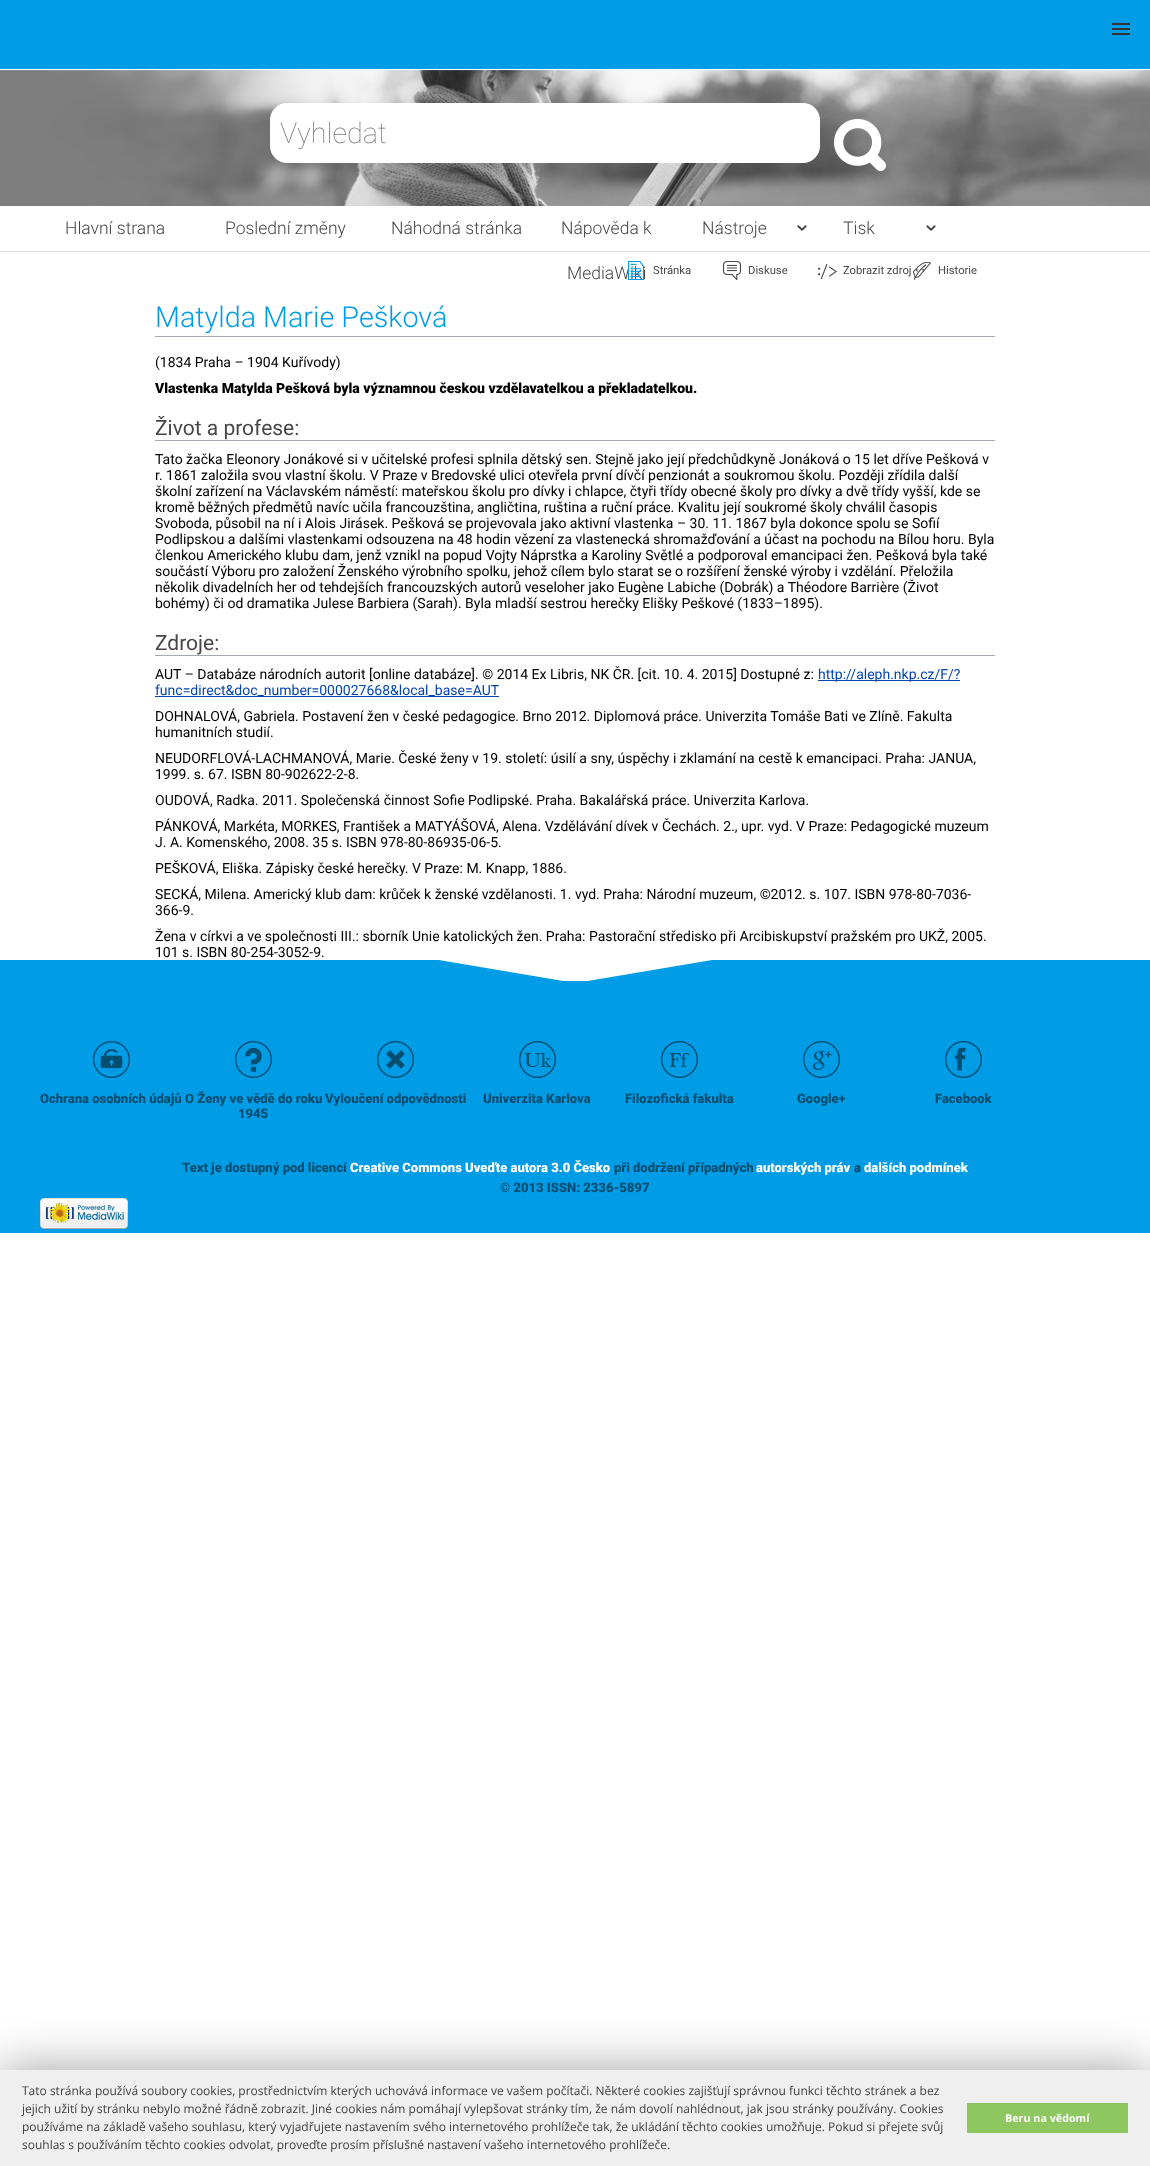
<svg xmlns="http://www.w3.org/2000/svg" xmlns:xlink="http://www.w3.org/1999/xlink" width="1150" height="2166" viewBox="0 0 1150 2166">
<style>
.cls-1{font:100 28.75px Roboto;fill:#757575}
.cls-2{font:300 17.5px Roboto;fill:#474747}
.cls-3{font:11.25px Roboto;fill:#474747}
.cls-4{font:300 28.75px Roboto;fill:#009ce6}
.cls-5{font:14px Roboto;fill:#000000}
.cls-6{font:900 14px Roboto;fill:#000000}
.cls-7{font:21px Roboto;fill:#474747}
.cls-8{font:14px Roboto;fill:#0645ad}
.cls-9{font:900 13px Roboto;fill:#034e71}
.cls-10{font:900 13px Roboto;fill:#ffffff}
.cls-11{font:12px Open Sans;fill:#404040}
.cls-12{font:bold 10.75px Open Sans;fill:#ffffff}
</style>
<rect width="100%" height="100%" fill="#ffffff"/>
<rect fill="#009ce6" x="0" y="0" width="1150" height="69"/>
<rect fill="#333333" x="1112" y="28" width="18" height="2"/>
<rect fill="#333333" x="1112" y="23" width="18" height="2"/>
<rect fill="#333333" x="1112" y="33" width="18" height="2"/>
<image xlink:href="image0.png" x="0" y="70" width="1150" height="136"/>
<rect fill="#ffffff" x="270" y="103" width="550" height="60" rx="17"/>
<image xlink:href="image1.png" x="834" y="119" width="52" height="52"/>
<rect fill="#dedede" x="0" y="251" width="1150" height="1"/>
<image xlink:href="image2.png" x="797" y="225" width="10" height="6"/>
<image xlink:href="image2.png" x="926" y="225" width="10" height="6"/>
<image xlink:href="image4.png" x="723" y="261" width="18" height="19"/>
<image xlink:href="image5.png" x="818" y="264" width="19" height="15"/>
<image xlink:href="image6.png" x="913" y="262" width="18" height="18"/>
<rect fill="#a2a9b1" x="155" y="336" width="840" height="1"/>
<rect fill="#a2a9b1" x="155" y="440" width="840" height="1"/>
<rect fill="#a2a9b1" x="155" y="655" width="840" height="1"/>
<rect fill="#0645ad" x="818" y="680" width="142" height="1"/>
<rect fill="#0645ad" x="155" y="696" width="344" height="1"/>
<rect fill="#009ce6" x="0" y="960" width="1150" height="273"/>
<image xlink:href="image7.png" x="439" y="960" width="273" height="21"/>
<image xlink:href="image8.png" x="93" y="1041" width="37" height="37"/>
<image xlink:href="image9.png" x="235" y="1041" width="37" height="37"/>
<image xlink:href="image10.png" x="377" y="1041" width="37" height="37"/>
<image xlink:href="image11.png" x="519" y="1041" width="37" height="37"/>
<image xlink:href="image12.png" x="661" y="1041" width="37" height="37"/>
<image xlink:href="image13.png" x="803" y="1041" width="37" height="37"/>
<image xlink:href="image14.png" x="945" y="1041" width="37" height="37"/>
<image xlink:href="image15.png" x="40" y="1198" width="88" height="31"/>
<rect fill="#000000" fill-opacity="0.38" filter="blur(25px)" x="0" y="2070" width="1150" height="96"/>
<rect fill="#efefef" x="0" y="2070" width="1150" height="96"/>
<rect fill="#8ec760" x="967" y="2103" width="161" height="30"/>
<text class="cls-1" x="280" y="143">Vyhledat</text>
<text class="cls-2" x="65" y="234">Hlavní strana</text>
<text class="cls-2" x="225" y="234">Poslední změny</text>
<text class="cls-2" x="391" y="234">Náhodná stránka</text>
<text class="cls-2" x="561" y="234">Nápověda k</text>
<text class="cls-2" x="567" y="279">MediaWiki</text>
<text class="cls-2" x="702" y="234">Nástroje</text>
<text class="cls-2" x="843" y="234">Tisk</text>
<image xlink:href="image3.png" x="628" y="261" width="16" height="19"/>
<text class="cls-3" x="653" y="274">Stránka</text>
<text class="cls-3" x="748" y="274">Diskuse</text>
<text class="cls-3" x="843" y="274">Zobrazit zdroj</text>
<text class="cls-3" x="938" y="274">Historie</text>
<text class="cls-4" x="155" y="327">Matylda Marie Pešková</text>
<text class="cls-5" x="155" y="367">(1834 Praha – 1904 Kuřívody)</text>
<text class="cls-6" x="155" y="393">Vlastenka Matylda Pešková byla významnou českou vzdělavatelkou a překladatelkou.</text>
<text class="cls-7" x="155" y="435">Život a profese:</text>
<text class="cls-5"><tspan x="155" y="464">Tato žačka Eleonory Jonákové si v učitelské profesi splnila dětský sen. Stejně jako její předchůdkyně Jonáková o 15 let dříve Pešková v</tspan><tspan x="155" y="480">r. 1861 založila svou vlastní školu. V Praze v Bredovské ulici otevřela první dívčí penzionát a soukromou školu. Později zřídila další</tspan><tspan x="155" y="496">školní zařízení na Václavském náměstí: mateřskou školu pro dívky i chlapce, čtyři třídy obecné školy pro dívky a dvě třídy vyšší, kde se</tspan><tspan x="155" y="512">kromě běžných předmětů navíc učila francouzština, angličtina, ruština a ruční práce. Kvalitu její soukromé školy chválil časopis</tspan><tspan x="155" y="528">Svoboda, působil na ní i Alois Jirásek. Pešková se projevovala jako aktivní vlastenka – 30. 11. 1867 byla dokonce spolu se Sofií</tspan><tspan x="155" y="544">Podlipskou a dalšími vlastenkami odsouzena na 48 hodin vězení za vlastenecká shromažďování a účast na pochodu na Bílou horu. Byla</tspan><tspan x="155" y="560">členkou Amerického klubu dam, jenž vznikl na popud Vojty Náprstka a Karoliny Světlé a podporoval emancipaci žen. Pešková byla také</tspan><tspan x="155" y="576">součástí Výboru pro založení Ženského výrobního spolku, jehož cílem bylo starat se o rozšíření ženské výroby i vzdělání. Přeložila</tspan><tspan x="155" y="592">několik divadelních her od tehdejších francouzských autorů veseloher jako Eugène Labiche (Dobrák) a Théodore Barrière (Život</tspan><tspan x="155" y="608">bohémy) či od dramatika Julese Barbiera (Sarah). Byla mladší sestrou herečky Elišky Peškové (1833–1895).</tspan></text>
<text class="cls-7" x="155" y="650">Zdroje:</text>
<text class="cls-5" x="155" y="679">AUT – Databáze národních autorit [online databáze]. © 2014 Ex Libris, NK ČR. [cit. 10. 4. 2015] Dostupné z:</text>
<text class="cls-8" x="818" y="679">http://aleph.nkp.cz/F/?</text>
<text class="cls-8" x="155" y="695">func=direct&amp;doc_number=000027668&amp;local_base=AUT</text>
<text class="cls-5"><tspan x="155" y="721">DOHNALOVÁ, Gabriela. Postavení žen v české pedagogice. Brno 2012. Diplomová práce. Univerzita Tomáše Bati ve Zlíně. Fakulta</tspan><tspan x="155" y="737">humanitních studií.</tspan><tspan x="155" y="763">NEUDORFLOVÁ-LACHMANOVÁ, Marie. České ženy v 19. století: úsilí a sny, úspěchy i zklamání na cestě k emancipaci. Praha: JANUA,</tspan><tspan x="155" y="779">1999. s. 67. ISBN 80-902622-2-8.</tspan><tspan x="155" y="805">OUDOVÁ, Radka. 2011. Společenská činnost Sofie Podlipské. Praha. Bakalářská práce. Univerzita Karlova.</tspan><tspan x="155" y="831">PÁNKOVÁ, Markéta, MORKES, František a MATYÁŠOVÁ, Alena. Vzdělávání dívek v Čechách. 2., upr. vyd. V Praze: Pedagogické muzeum</tspan><tspan x="155" y="847">J. A. Komenského, 2008. 35 s. ISBN 978-80-86935-06-5.</tspan><tspan x="155" y="873">PEŠKOVÁ, Eliška. Zápisky české herečky. V Praze: M. Knapp, 1886.</tspan><tspan x="155" y="899">SECKÁ, Milena. Americký klub dam: krůček k ženské vzdělanosti. 1. vyd. Praha: Národní muzeum, ©2012. s. 107. ISBN 978-80-7036-</tspan><tspan x="155" y="915">366-9.</tspan><tspan x="155" y="941">Žena v církvi a ve společnosti III.: sborník Unie katolických žen. Praha: Pastorační středisko při Arcibiskupství pražském pro UKŽ, 2005.</tspan><tspan x="155" y="957">101 s. ISBN 80-254-3052-9.</tspan></text>
<text class="cls-9" x="40" y="1103">Ochrana osobních údajů</text>
<text class="cls-9" x="185" y="1103">O Ženy ve vědě do roku</text>
<text class="cls-9" x="238" y="1118">1945</text>
<text class="cls-9" x="325" y="1103">Vyloučení odpovědnosti</text>
<text class="cls-9" x="483" y="1103">Univerzita Karlova</text>
<text class="cls-9" x="625" y="1103">Filozofická fakulta</text>
<text class="cls-9" x="797" y="1103">Google+</text>
<text class="cls-9" x="935" y="1103">Facebook</text>
<text class="cls-9" x="182" y="1172">Text je dostupný pod licencí</text>
<text class="cls-10" x="350" y="1172">Creative Commons Uveďte autora 3.0 Česko</text>
<text class="cls-9" x="614" y="1172">při dodržení případných</text>
<text class="cls-10" x="756" y="1172">autorských práv</text>
<text class="cls-9" x="854" y="1172">a</text>
<text class="cls-10" x="864" y="1172">dalších podmínek</text>
<text class="cls-9" x="500" y="1192">© 2013 ISSN: 2336-5897</text>
<text class="cls-11"><tspan x="22" y="2095">Tato stránka používá soubory cookies, prostřednictvím kterých uchovává informace ve vašem počítači. Některé cookies zajišťují správnou funkci těchto stránek a bez</tspan><tspan x="22" y="2113">jejich užití by stránku nebylo možné řádně zobrazit. Jiné cookies nám pomáhají vylepšovat stránky tím, že nám dovolí nahlédnout, jak jsou stránky používány. Cookies</tspan><tspan x="22" y="2131">používáme na základě vašeho souhlasu, který vyjadřujete nastavením svého internetového prohlížeče tak, že ukládání těchto cookies umožňuje. Pokud si přejete svůj</tspan><tspan x="22" y="2149">souhlas s používáním těchto cookies odvolat, proveďte prosím příslušné nastavení vašeho internetového prohlížeče.</tspan></text>
<text class="cls-12" x="1005" y="2122">Beru na vědomí</text>
</svg>
